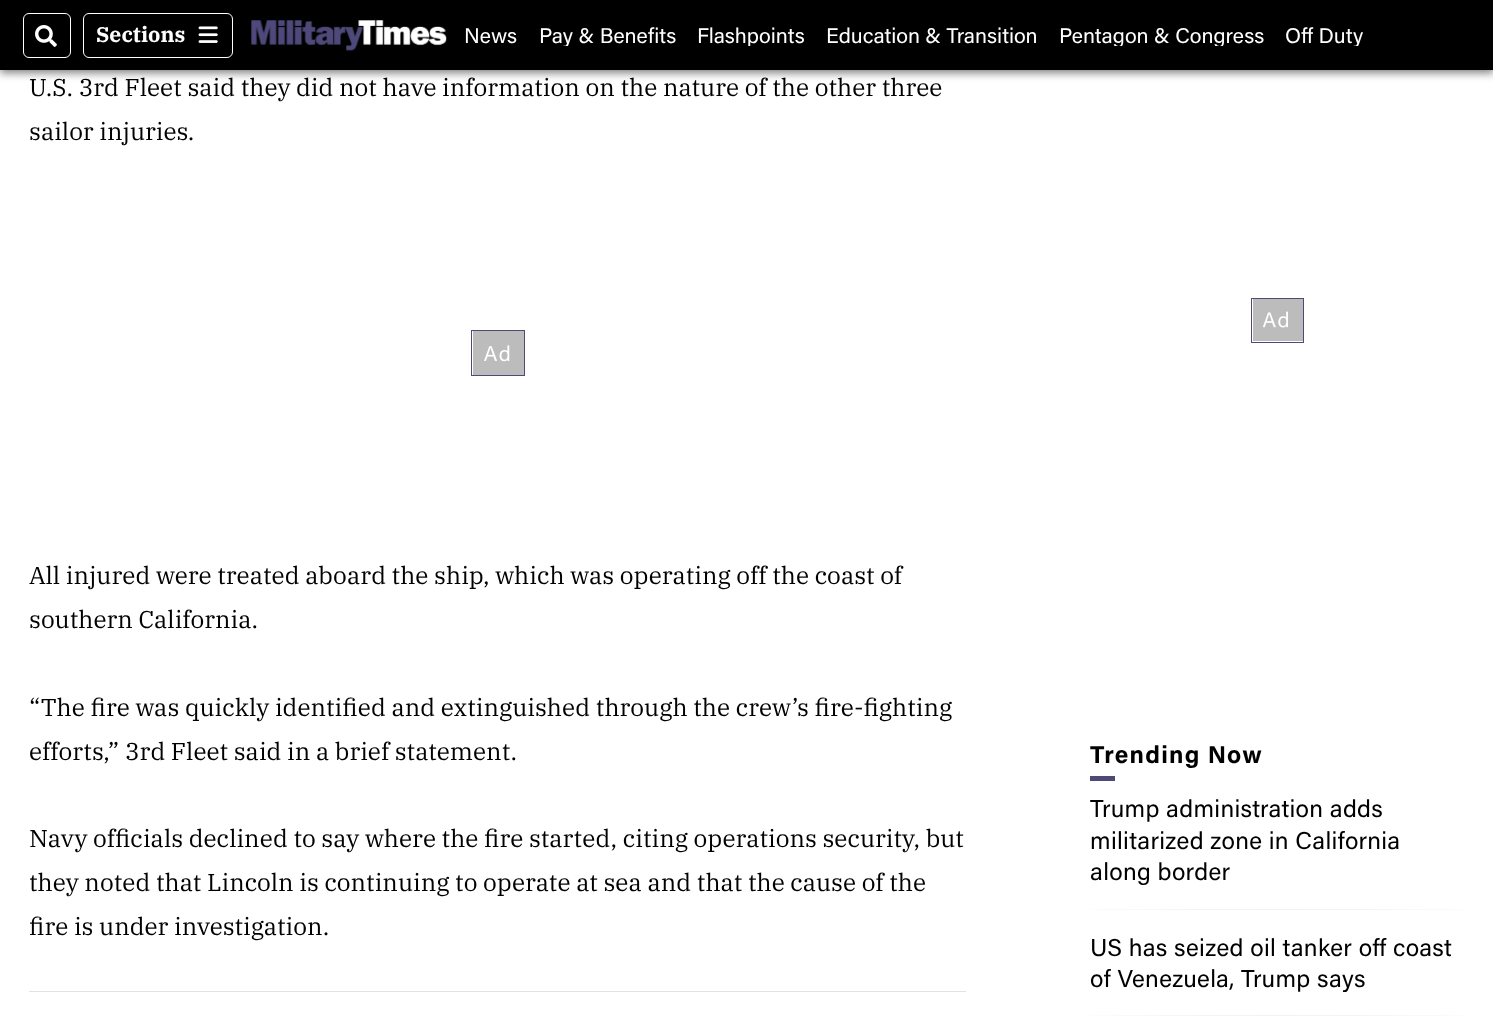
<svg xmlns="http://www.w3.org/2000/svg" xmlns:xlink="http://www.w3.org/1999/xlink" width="1493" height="1018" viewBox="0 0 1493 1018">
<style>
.cls-1{font:bold 21.25px IBM Plex Serif;fill:#ffffff}
.cls-2{font:21.25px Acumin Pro;fill:#ffffff}
.cls-3{font:24.35px IBM Plex Serif;fill:#000000}
.cls-4{font:bold 24.35px Acumin Pro;letter-spacing:1.25px;fill:#000000}
.cls-5{font:24.35px Acumin Pro;letter-spacing:0.3px;fill:#000000}
</style>
<defs>
<radialGradient id="g1" gradientUnits="userSpaceOnUse" cx="0" cy="0" r="1" gradientTransform="matrix(265 0 0 0.9 1278 909)"><stop offset="0" stop-color="#e2e2e2"/><stop offset="1" stop-color="#ffffff"/></radialGradient>
<radialGradient id="g2" gradientUnits="userSpaceOnUse" cx="0" cy="0" r="1" gradientTransform="matrix(265 0 0 0.9 1278 1016)"><stop offset="0" stop-color="#e2e2e2"/><stop offset="1" stop-color="#ffffff"/></radialGradient>
<clipPath id="clip1"><rect x="464" y="24" width="990" height="22"/></clipPath>
<clipPath id="clip2"><rect x="1090" y="739" width="375" height="42"/></clipPath>
</defs>
<rect width="100%" height="100%" fill="#ffffff"/>
<rect fill="#000000" fill-opacity="0.5" filter="blur(4px)" x="0" y="3" width="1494" height="70"/>
<rect fill="#000000" x="0" y="0" width="1493" height="70"/>
<rect fill="none" stroke="#ffffff" x="23.5" y="13.5" width="47" height="44" rx="5.5"/>
<image xlink:href="image0.png" x="35" y="25" width="22" height="22"/>
<rect fill="none" stroke="#ffffff" x="83.5" y="13.5" width="149" height="44" rx="5.5"/>
<image xlink:href="image1.png" x="198" y="26" width="20" height="17"/>
<image xlink:href="image2.png" x="251" y="20" width="196" height="31"/>
<rect fill="#bcbcbc" x="473" y="331" width="51" height="44"/>
<image xlink:href="image3.png" x="484" y="345" width="26" height="17"/>
<rect fill="none" stroke="#4e4a78" x="471.5" y="330.5" width="53" height="45"/>
<rect fill="#e2e2e2" x="29" y="991" width="937" height="1"/>
<rect fill="#bcbcbc" x="1253" y="299" width="50" height="42"/>
<image xlink:href="image4.png" x="1263" y="311" width="25" height="17"/>
<rect fill="none" stroke="#4e4a78" x="1251.5" y="298.5" width="52" height="44"/>
<rect fill="#4e4a78" x="1090" y="776" width="25" height="5"/>
<rect fill="url(#g1)" x="1090" y="909" width="375" height="1"/>
<rect fill="url(#g2)" x="1090" y="1015" width="375" height="1"/>
<text class="cls-1" x="96" y="42">Sections</text>
<text class="cls-2" x="464" y="43">News</text>
<g clip-path="url(#clip1)">
<text class="cls-2" x="539" y="43">Pay &amp; Benefits</text>
<text class="cls-2" x="697" y="43">Flashpoints</text>
</g>
<text class="cls-2" x="826" y="43">Education &amp; Transition</text>
<g clip-path="url(#clip1)">
<text class="cls-2" x="1059" y="43">Pentagon &amp; Congress</text>
<text class="cls-2" x="1285" y="43">Off Duty</text>
</g>
<text class="cls-3"><tspan x="29" y="96">U.S. 3rd Fleet said they did not have information on the nature of the other three</tspan><tspan x="29" y="140">sailor injuries.</tspan></text>
<text class="cls-3"><tspan x="29" y="584">All injured were treated aboard the ship, which was operating off the coast of</tspan><tspan x="29" y="628">southern California.</tspan></text>
<text class="cls-3"><tspan x="29" y="716">“The fire was quickly identified and extinguished through the crew’s fire-fighting</tspan><tspan x="29" y="760">efforts,” 3rd Fleet said in a brief statement.</tspan></text>
<text class="cls-3"><tspan x="29" y="847">Navy officials declined to say where the fire started, citing operations security, but</tspan><tspan x="29" y="891">they noted that Lincoln is continuing to operate at sea and that the cause of the</tspan><tspan x="29" y="935">fire is under investigation.</tspan></text>
<g clip-path="url(#clip2)">
<text class="cls-4" x="1090" y="763">Trending Now</text>
</g>
<text class="cls-5"><tspan x="1090" y="817">Trump administration adds</tspan><tspan x="1090" y="849">militarized zone in California</tspan><tspan x="1090" y="880">along border</tspan></text>
<text class="cls-5"><tspan x="1090" y="956">US has seized oil tanker off coast</tspan><tspan x="1090" y="987">of Venezuela, Trump says</tspan></text>
</svg>
